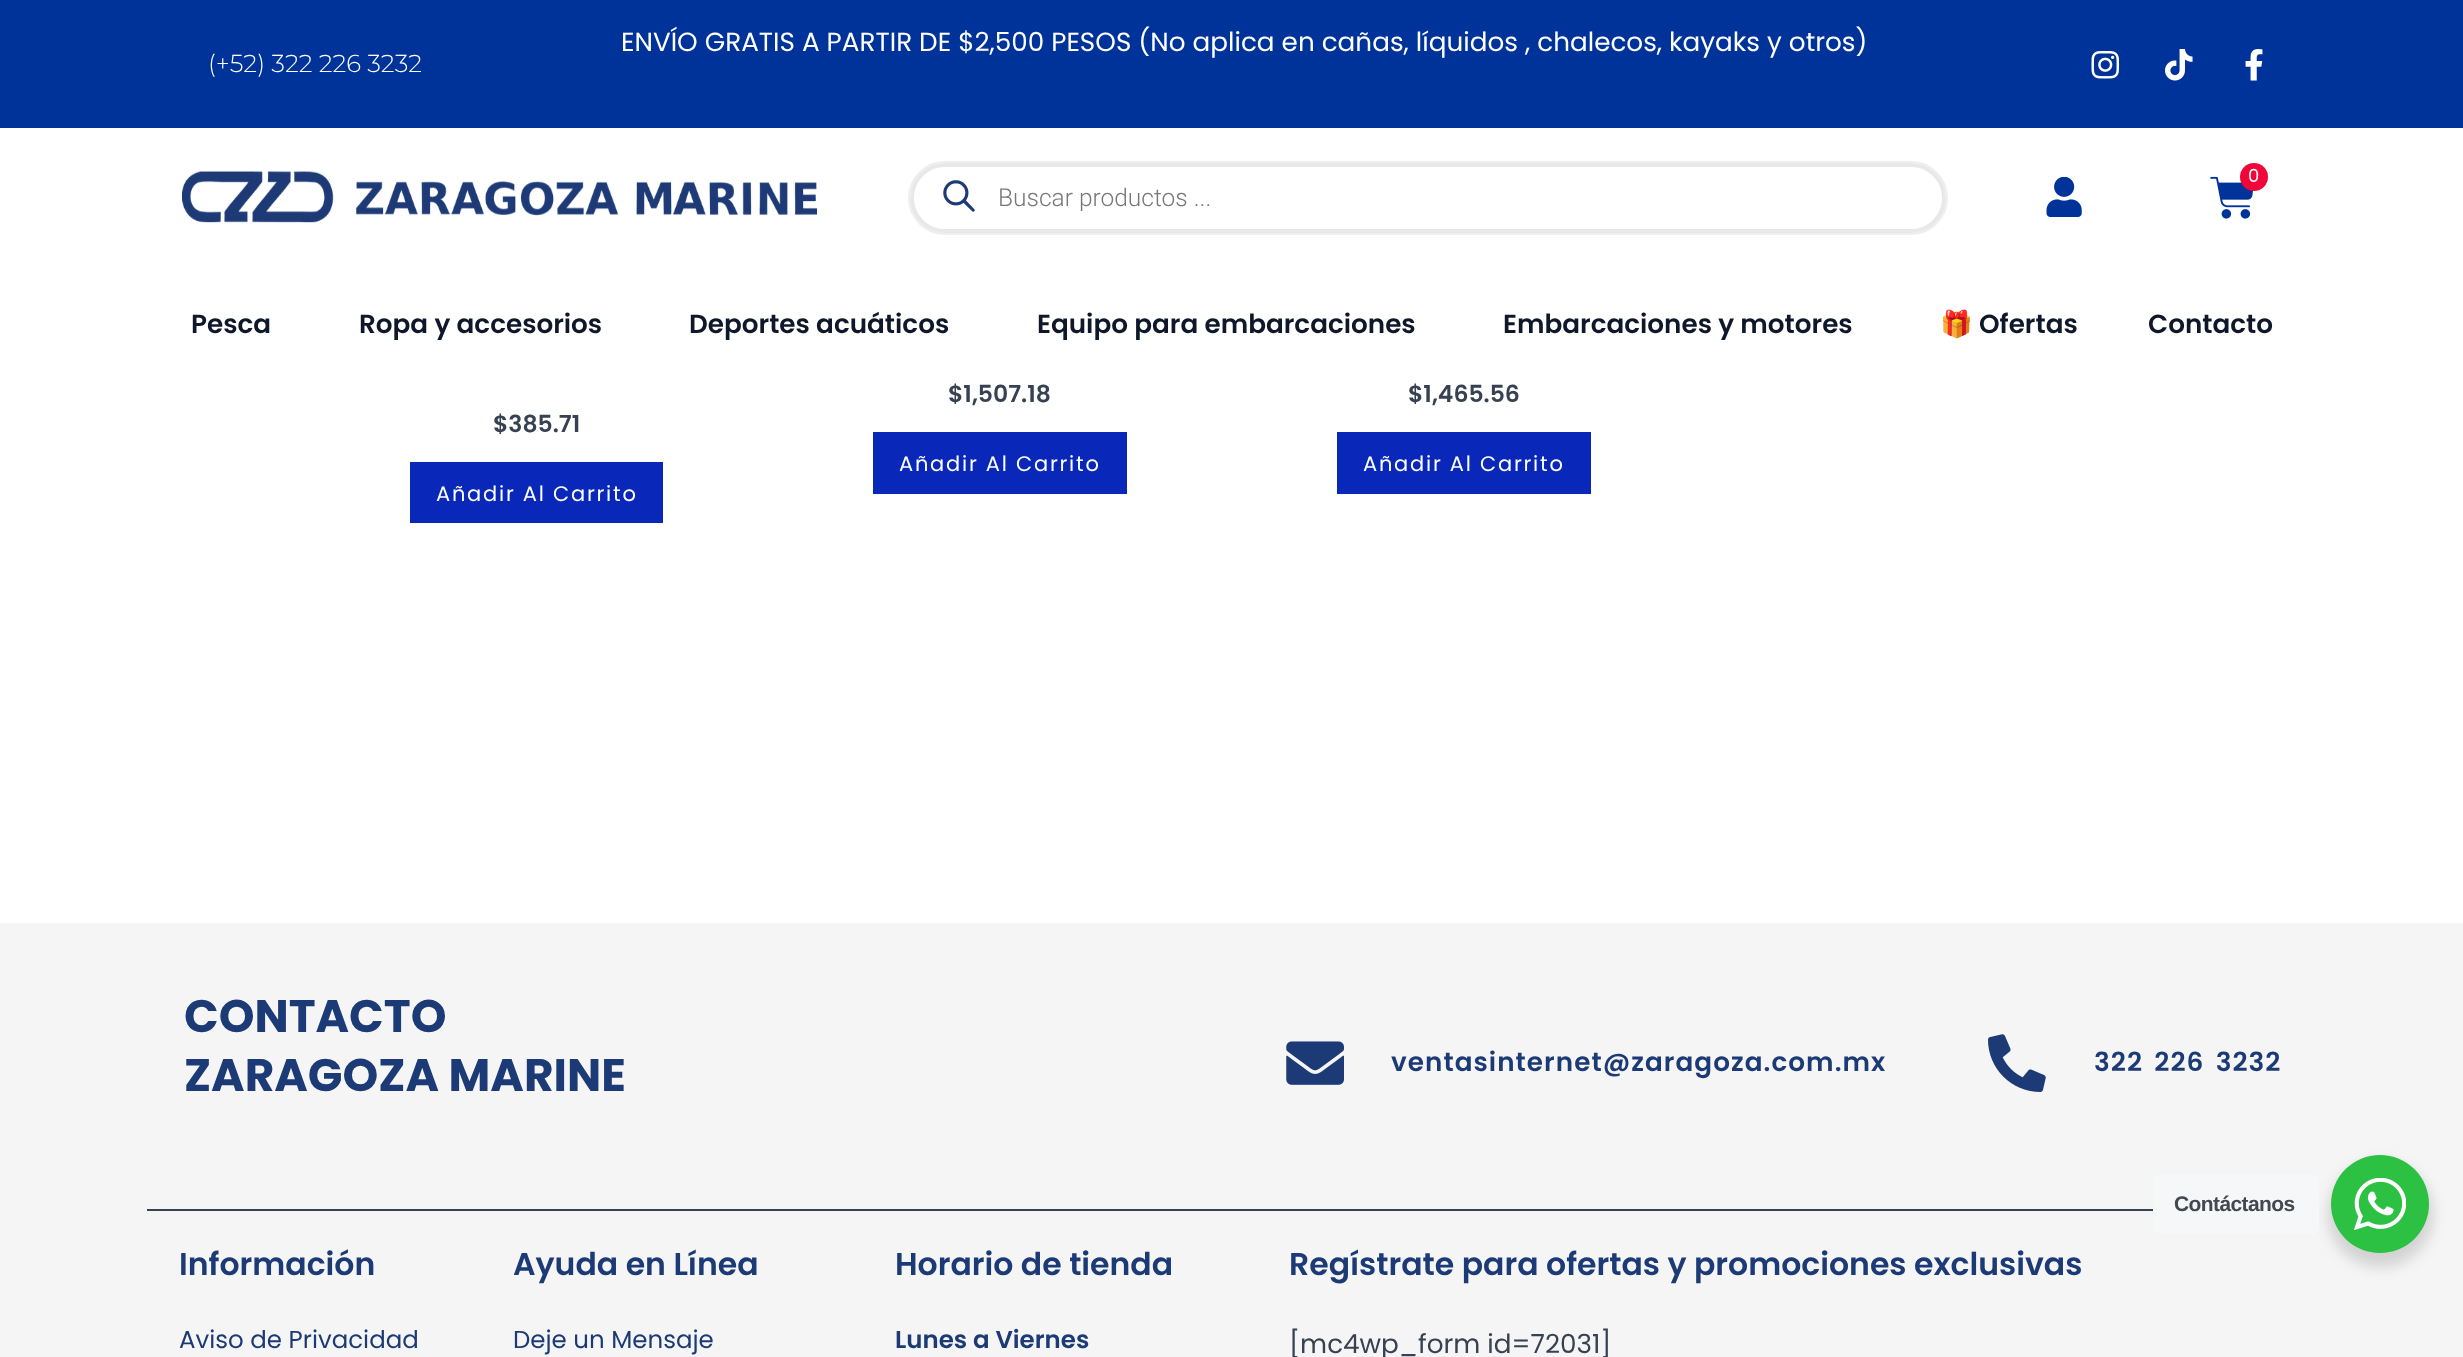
<svg xmlns="http://www.w3.org/2000/svg" xmlns:xlink="http://www.w3.org/1999/xlink" width="2463" height="1357" viewBox="0 0 2463 1357">
<style>
.cls-1{font:26.25px Poppins;fill:#ffffff}
.cls-2{font:300 24.5px Montserrat;fill:#ffffff}
.cls-3{font:300 24.5px Roboto;fill:#777777}
.cls-4{font:18px Poppins;fill:#ffffff}
.cls-5{font:600 26.25px Poppins;fill:#0f172a}
.cls-6{font:bold 26.25px Noto Color Emoji;fill:#0f172a}
.cls-7{font:600 23.5px Poppins;fill:#364151}
.cls-8{font:21px Poppins;letter-spacing:1.75px;fill:#ffffff}
.cls-9{font:bold 45.5px Poppins;fill:#1c3a76}
.cls-10{font:600 26.25px Poppins;letter-spacing:1.05px;fill:#1c3a76}
.cls-11{font:600 31.5px Poppins;fill:#1c3a76}
.cls-12{font:24.5px Poppins;fill:#1c3a76}
.cls-13{font:600 24.5px Poppins;fill:#1c3a76}
.cls-14{font:26.25px Poppins;fill:#364151}
.cls-15{font:bold 21px Liberation Sans;letter-spacing:-0.6px;fill:#43474e}
</style>
<rect width="100%" height="100%" fill="#ffffff"/>
<rect fill="#003399" x="0" y="0" width="2463" height="128"/>
<image xlink:href="image0.png" x="2091" y="50" width="29" height="29"/>
<image xlink:href="image1.png" x="2165" y="49" width="28" height="32"/>
<image xlink:href="image2.png" x="2245" y="49" width="18" height="32"/>
<image xlink:href="image3.png" x="182" y="171" width="635" height="52"/>
<rect fill="none" stroke="#eeeeee" stroke-width="2" x="909" y="162" width="1038" height="72" rx="36"/>
<rect fill="#ffffff" stroke="#e8e8e8" stroke-width="4" x="912" y="165" width="1032" height="66" rx="33"/>
<image xlink:href="image4.png" x="943" y="180" width="32" height="32"/>
<image xlink:href="image5.png" x="2046" y="177" width="36" height="40"/>
<image xlink:href="image6.png" x="2210" y="176" width="43" height="43"/>
<circle fill="#f0073a" cx="2254" cy="177" r="14"/>
<rect fill="#0927b9" x="410" y="462" width="253" height="61"/>
<rect fill="#0927b9" x="873" y="432" width="254" height="62"/>
<rect fill="#0927b9" x="1337" y="432" width="254" height="62"/>
<rect fill="#f5f5f5" x="0" y="923" width="2463" height="434"/>
<image xlink:href="image7.png" x="1286" y="1041" width="58" height="44"/>
<image xlink:href="image8.png" x="1988" y="1034" width="58" height="58"/>
<rect fill="#364151" x="147" y="1209" width="2006" height="2"/>
<rect fill="#000000" fill-opacity="0.14" filter="blur(7px)" x="2328" y="1162" width="105" height="105" rx="52.5"/>
<rect fill="#f5f7f9" x="2153" y="1174" width="166" height="60" rx="7"/>
<circle fill="#2cc142" cx="2380" cy="1204" r="49"/>
<image xlink:href="image9.png" x="2354" y="1178" width="52" height="52"/>
<text class="cls-1" x="621" y="51">ENVÍO GRATIS A PARTIR DE $2,500 PESOS (No aplica en cañas, líquidos , chalecos, kayaks y otros)</text>
<text class="cls-2" x="208" y="72">(+52) 322 226 3232</text>
<text class="cls-3" x="998" y="206">Buscar productos ...</text>
<text class="cls-4" x="2248" y="182">0</text>
<text class="cls-5" x="191" y="333">Pesca</text>
<text class="cls-5" x="359" y="333">Ropa y accesorios</text>
<text class="cls-5" x="689" y="333">Deportes acuáticos</text>
<text class="cls-5" x="1037" y="333">Equipo para embarcaciones</text>
<text class="cls-5" x="1503" y="333">Embarcaciones y motores</text>
<text class="cls-6" x="1940" y="333">🎁</text>
<text class="cls-5" x="1979" y="333">Ofertas</text>
<text class="cls-5" x="2148" y="333">Contacto</text>
<text class="cls-7" x="493" y="432">$385.71</text>
<text class="cls-8" x="436" y="501">Añadir Al Carrito</text>
<text class="cls-7" x="948" y="402">$1,507.18</text>
<text class="cls-8" x="899" y="471">Añadir Al Carrito</text>
<text class="cls-7" x="1408" y="402">$1,465.56</text>
<text class="cls-8" x="1363" y="471">Añadir Al Carrito</text>
<text class="cls-9"><tspan x="184" y="1032">CONTACTO</tspan><tspan x="184" y="1091">ZARAGOZA MARINE</tspan></text>
<text class="cls-10" x="1391" y="1071">ventasinternet@zaragoza.com.mx</text>
<text class="cls-10" x="2094" y="1071" word-spacing="4">322 226 3232</text>
<text class="cls-11" x="179" y="1275">Información</text>
<text class="cls-12" x="179" y="1348">Aviso de Privacidad</text>
<text class="cls-11" x="513" y="1275">Ayuda en Línea</text>
<text class="cls-12" x="513" y="1348">Deje un Mensaje</text>
<text class="cls-11" x="895" y="1275">Horario de tienda</text>
<text class="cls-13" x="895" y="1348">Lunes a Viernes</text>
<text class="cls-11" x="1289" y="1275">Regístrate para ofertas y promociones exclusivas</text>
<text class="cls-14" x="1289" y="1353">[mc4wp_form id=72031]</text>
<text class="cls-15" x="2174" y="1211">Contáctanos</text>
</svg>
